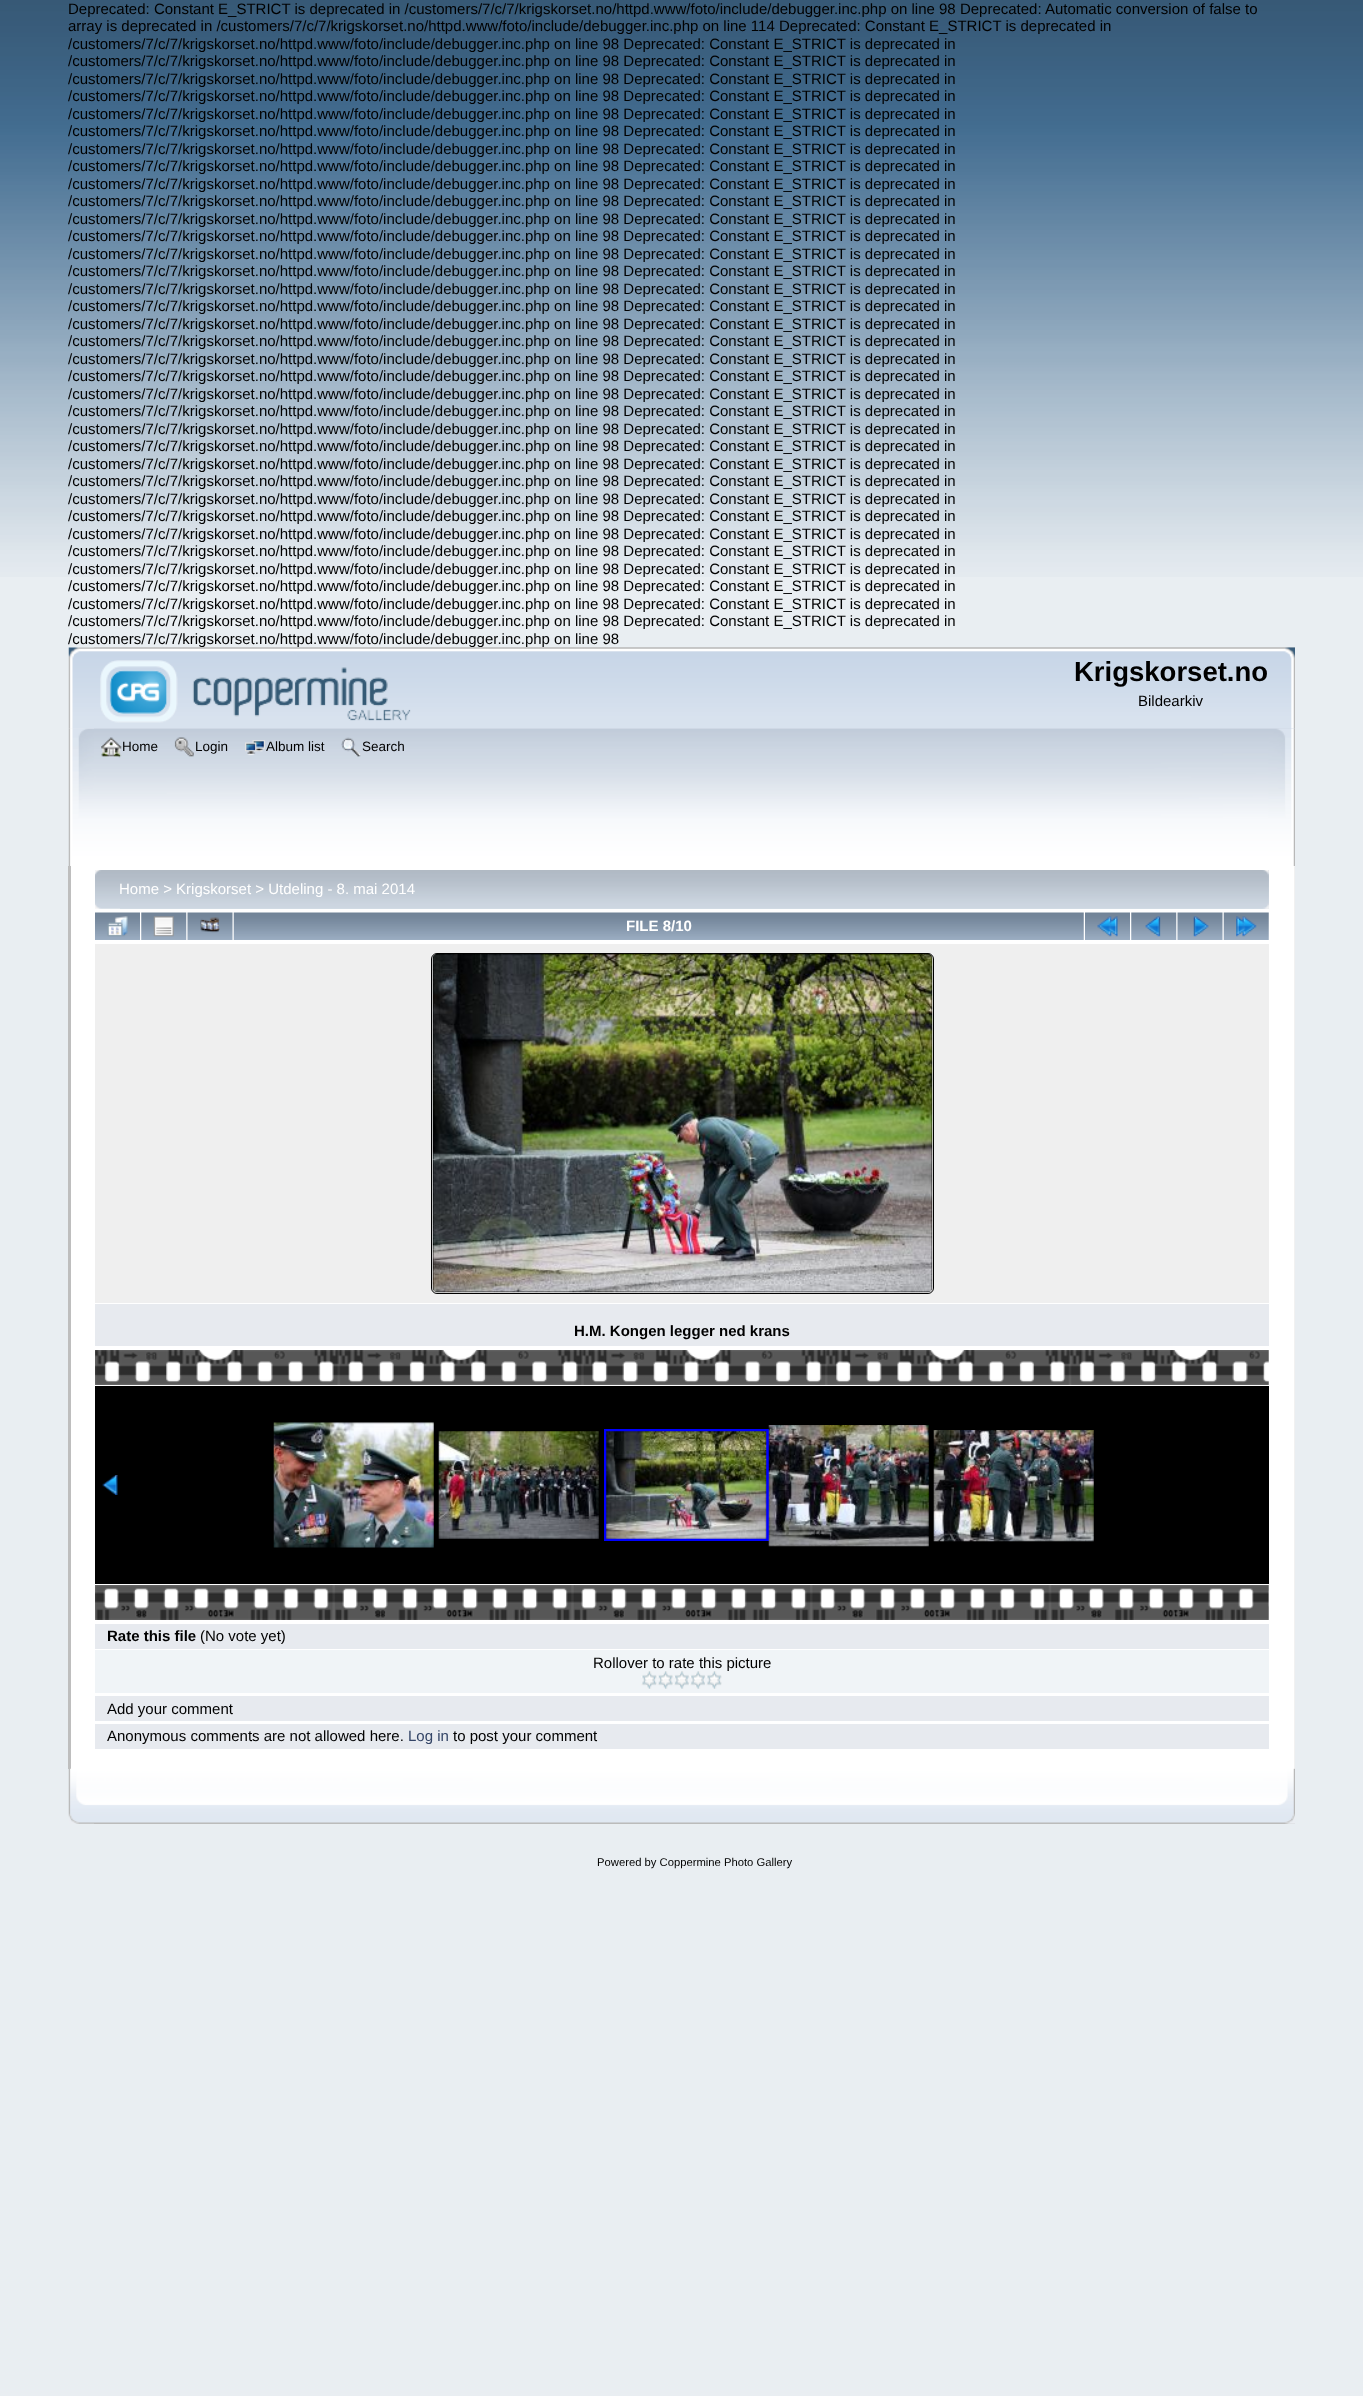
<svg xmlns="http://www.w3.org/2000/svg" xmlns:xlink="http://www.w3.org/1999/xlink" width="1363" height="2396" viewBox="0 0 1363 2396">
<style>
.cls-1{font:15px Liberation Sans;fill:#000000}
.cls-2{font:bold 27.5px Liberation Sans;fill:#000000}
.cls-3{font:13.5px Liberation Sans;fill:#000000}
.cls-4{font:15px Liberation Sans;fill:#ffffff}
.cls-5{font:bold 15px Liberation Sans;fill:#ffffff}
.cls-6{font:bold 15px Liberation Sans;fill:#000000}
.cls-7{font:15px Liberation Sans;fill:#334466}
.cls-8{font:11.25px Liberation Sans;fill:#000000}
</style>
<rect width="100%" height="100%" fill="#e9eef2"/>
<image xlink:href="image0.png" x="0" y="0" width="1363" height="577"/>
<image xlink:href="image1.png" x="68" y="647" width="1227" height="82"/>
<image xlink:href="image2.png" x="94" y="647" width="1201" height="82"/>
<image xlink:href="image3.png" x="100" y="660" width="311" height="63"/>
<image xlink:href="image4.png" x="68" y="728" width="1227" height="138"/>
<image xlink:href="image5.png" x="94" y="728" width="1201" height="138"/>
<image xlink:href="image6.png" x="101" y="737" width="21" height="21"/>
<image xlink:href="image7.png" x="174" y="737" width="20" height="20"/>
<image xlink:href="image8.png" x="245" y="740" width="20" height="16"/>
<image xlink:href="image9.png" x="341" y="737" width="20" height="20"/>
<rect fill="#ffffff" x="71" y="866" width="1224" height="903"/>
<rect fill="#bebebe" x="68" y="866" width="3" height="903"/>
<image xlink:href="image10.png" x="1294" y="866" width="1" height="903"/>
<image xlink:href="image11.png" x="95" y="870" width="1174" height="39"/>
<image xlink:href="image12.png" x="120" y="870" width="1149" height="39"/>
<image xlink:href="image13.png" x="95" y="912" width="45" height="28"/>
<image xlink:href="image14.png" x="107" y="916" width="21" height="21"/>
<image xlink:href="image15.png" x="141" y="912" width="46" height="28"/>
<image xlink:href="image16.png" x="153" y="916" width="21" height="21"/>
<image xlink:href="image17.png" x="187" y="912" width="46" height="28"/>
<image xlink:href="image18.png" x="200" y="917" width="20" height="16"/>
<image xlink:href="image19.png" x="233" y="912" width="851" height="28"/>
<image xlink:href="image13.png" x="1085" y="912" width="45" height="28"/>
<image xlink:href="image20.png" x="1097" y="916" width="21" height="21"/>
<image xlink:href="image15.png" x="1131" y="912" width="46" height="28"/>
<image xlink:href="image21.png" x="1145" y="916" width="16" height="21"/>
<image xlink:href="image17.png" x="1177" y="912" width="46" height="28"/>
<image xlink:href="image22.png" x="1193" y="916" width="16" height="21"/>
<image xlink:href="image23.png" x="1223" y="912" width="46" height="28"/>
<image xlink:href="image24.png" x="1236" y="916" width="21" height="21"/>
<rect fill="#efefef" x="95" y="944" width="1174" height="359"/>
<rect fill="none" stroke="#000000" x="431.5" y="953.5" width="502" height="340" rx="5.5"/>
<image xlink:href="image25.png" x="432" y="953" width="501" height="340"/>
<rect fill="#e7eaef" x="95" y="1304" width="1174" height="42"/>
<image xlink:href="image26.png" x="95" y="1350" width="1174" height="35"/>
<rect fill="#000000" x="95" y="1386" width="1174" height="198"/>
<image xlink:href="image27.png" x="102" y="1475" width="16" height="20"/>
<image xlink:href="image28.png" x="273" y="1422" width="161" height="126"/>
<image xlink:href="image29.png" x="438" y="1431" width="161" height="108"/>
<rect fill="none" stroke="#0000ff" stroke-width="3" x="605.5" y="1430.5" width="162" height="109"/>
<image xlink:href="image30.png" x="606" y="1431" width="161" height="108"/>
<image xlink:href="image31.png" x="768" y="1425" width="161" height="122"/>
<image xlink:href="image32.png" x="933" y="1430" width="161" height="112"/>
<image xlink:href="image33.png" x="95" y="1585" width="1174" height="35"/>
<rect fill="#e7eaef" x="95" y="1624" width="1174" height="25"/>
<rect fill="#f0f4f7" x="95" y="1650" width="1174" height="43"/>
<rect fill="#e7eaef" x="95" y="1696" width="1174" height="25"/>
<rect fill="#e7eaef" x="95" y="1724" width="1174" height="25"/>
<image xlink:href="image38.png" x="68" y="1768" width="1227" height="56"/>
<image xlink:href="image39.png" x="94" y="1768" width="1201" height="56"/>
<text class="cls-1"><tspan x="68" y="14">Deprecated: Constant E_STRICT is deprecated in /customers/7/c/7/krigskorset.no/httpd.www/foto/include/debugger.inc.php on line 98 Deprecated: Automatic conversion of false to</tspan><tspan x="68" y="31">array is deprecated in /customers/7/c/7/krigskorset.no/httpd.www/foto/include/debugger.inc.php on line 114 Deprecated: Constant E_STRICT is deprecated in</tspan><tspan x="68" y="49">/customers/7/c/7/krigskorset.no/httpd.www/foto/include/debugger.inc.php on line 98 Deprecated: Constant E_STRICT is deprecated in</tspan><tspan x="68" y="66">/customers/7/c/7/krigskorset.no/httpd.www/foto/include/debugger.inc.php on line 98 Deprecated: Constant E_STRICT is deprecated in</tspan><tspan x="68" y="84">/customers/7/c/7/krigskorset.no/httpd.www/foto/include/debugger.inc.php on line 98 Deprecated: Constant E_STRICT is deprecated in</tspan><tspan x="68" y="101">/customers/7/c/7/krigskorset.no/httpd.www/foto/include/debugger.inc.php on line 98 Deprecated: Constant E_STRICT is deprecated in</tspan><tspan x="68" y="119">/customers/7/c/7/krigskorset.no/httpd.www/foto/include/debugger.inc.php on line 98 Deprecated: Constant E_STRICT is deprecated in</tspan><tspan x="68" y="136">/customers/7/c/7/krigskorset.no/httpd.www/foto/include/debugger.inc.php on line 98 Deprecated: Constant E_STRICT is deprecated in</tspan><tspan x="68" y="154">/customers/7/c/7/krigskorset.no/httpd.www/foto/include/debugger.inc.php on line 98 Deprecated: Constant E_STRICT is deprecated in</tspan><tspan x="68" y="171">/customers/7/c/7/krigskorset.no/httpd.www/foto/include/debugger.inc.php on line 98 Deprecated: Constant E_STRICT is deprecated in</tspan><tspan x="68" y="189">/customers/7/c/7/krigskorset.no/httpd.www/foto/include/debugger.inc.php on line 98 Deprecated: Constant E_STRICT is deprecated in</tspan><tspan x="68" y="206">/customers/7/c/7/krigskorset.no/httpd.www/foto/include/debugger.inc.php on line 98 Deprecated: Constant E_STRICT is deprecated in</tspan><tspan x="68" y="224">/customers/7/c/7/krigskorset.no/httpd.www/foto/include/debugger.inc.php on line 98 Deprecated: Constant E_STRICT is deprecated in</tspan><tspan x="68" y="241">/customers/7/c/7/krigskorset.no/httpd.www/foto/include/debugger.inc.php on line 98 Deprecated: Constant E_STRICT is deprecated in</tspan><tspan x="68" y="259">/customers/7/c/7/krigskorset.no/httpd.www/foto/include/debugger.inc.php on line 98 Deprecated: Constant E_STRICT is deprecated in</tspan><tspan x="68" y="276">/customers/7/c/7/krigskorset.no/httpd.www/foto/include/debugger.inc.php on line 98 Deprecated: Constant E_STRICT is deprecated in</tspan><tspan x="68" y="294">/customers/7/c/7/krigskorset.no/httpd.www/foto/include/debugger.inc.php on line 98 Deprecated: Constant E_STRICT is deprecated in</tspan><tspan x="68" y="311">/customers/7/c/7/krigskorset.no/httpd.www/foto/include/debugger.inc.php on line 98 Deprecated: Constant E_STRICT is deprecated in</tspan><tspan x="68" y="329">/customers/7/c/7/krigskorset.no/httpd.www/foto/include/debugger.inc.php on line 98 Deprecated: Constant E_STRICT is deprecated in</tspan><tspan x="68" y="346">/customers/7/c/7/krigskorset.no/httpd.www/foto/include/debugger.inc.php on line 98 Deprecated: Constant E_STRICT is deprecated in</tspan><tspan x="68" y="364">/customers/7/c/7/krigskorset.no/httpd.www/foto/include/debugger.inc.php on line 98 Deprecated: Constant E_STRICT is deprecated in</tspan><tspan x="68" y="381">/customers/7/c/7/krigskorset.no/httpd.www/foto/include/debugger.inc.php on line 98 Deprecated: Constant E_STRICT is deprecated in</tspan><tspan x="68" y="399">/customers/7/c/7/krigskorset.no/httpd.www/foto/include/debugger.inc.php on line 98 Deprecated: Constant E_STRICT is deprecated in</tspan><tspan x="68" y="416">/customers/7/c/7/krigskorset.no/httpd.www/foto/include/debugger.inc.php on line 98 Deprecated: Constant E_STRICT is deprecated in</tspan><tspan x="68" y="434">/customers/7/c/7/krigskorset.no/httpd.www/foto/include/debugger.inc.php on line 98 Deprecated: Constant E_STRICT is deprecated in</tspan><tspan x="68" y="451">/customers/7/c/7/krigskorset.no/httpd.www/foto/include/debugger.inc.php on line 98 Deprecated: Constant E_STRICT is deprecated in</tspan><tspan x="68" y="469">/customers/7/c/7/krigskorset.no/httpd.www/foto/include/debugger.inc.php on line 98 Deprecated: Constant E_STRICT is deprecated in</tspan><tspan x="68" y="486">/customers/7/c/7/krigskorset.no/httpd.www/foto/include/debugger.inc.php on line 98 Deprecated: Constant E_STRICT is deprecated in</tspan><tspan x="68" y="504">/customers/7/c/7/krigskorset.no/httpd.www/foto/include/debugger.inc.php on line 98 Deprecated: Constant E_STRICT is deprecated in</tspan><tspan x="68" y="521">/customers/7/c/7/krigskorset.no/httpd.www/foto/include/debugger.inc.php on line 98 Deprecated: Constant E_STRICT is deprecated in</tspan><tspan x="68" y="539">/customers/7/c/7/krigskorset.no/httpd.www/foto/include/debugger.inc.php on line 98 Deprecated: Constant E_STRICT is deprecated in</tspan><tspan x="68" y="556">/customers/7/c/7/krigskorset.no/httpd.www/foto/include/debugger.inc.php on line 98 Deprecated: Constant E_STRICT is deprecated in</tspan><tspan x="68" y="574">/customers/7/c/7/krigskorset.no/httpd.www/foto/include/debugger.inc.php on line 98 Deprecated: Constant E_STRICT is deprecated in</tspan><tspan x="68" y="591">/customers/7/c/7/krigskorset.no/httpd.www/foto/include/debugger.inc.php on line 98 Deprecated: Constant E_STRICT is deprecated in</tspan><tspan x="68" y="609">/customers/7/c/7/krigskorset.no/httpd.www/foto/include/debugger.inc.php on line 98 Deprecated: Constant E_STRICT is deprecated in</tspan><tspan x="68" y="626">/customers/7/c/7/krigskorset.no/httpd.www/foto/include/debugger.inc.php on line 98 Deprecated: Constant E_STRICT is deprecated in</tspan><tspan x="68" y="644">/customers/7/c/7/krigskorset.no/httpd.www/foto/include/debugger.inc.php on line 98</tspan></text>
<text class="cls-2" x="1074" y="681">Krigskorset.no</text>
<text class="cls-1" x="1138" y="706">Bildearkiv</text>
<text class="cls-3" x="122" y="751">Home</text>
<text class="cls-3" x="195" y="751">Login</text>
<text class="cls-3" x="266" y="751">Album list</text>
<text class="cls-3" x="362" y="751">Search</text>
<text class="cls-4" x="119" y="894">Home &gt; Krigskorset &gt; Utdeling - 8. mai 2014</text>
<text class="cls-5" x="626" y="931">FILE 8/10</text>
<text class="cls-6" x="574" y="1336">H.M. Kongen legger ned krans</text>
<text class="cls-6" x="107" y="1641">Rate this file</text>
<text class="cls-1" x="200" y="1641">(No vote yet)</text>
<text class="cls-1" x="593" y="1668">Rollover to rate this picture</text>
<image xlink:href="image34.png" x="641" y="1671" width="16" height="18"/>
<image xlink:href="image35.png" x="657" y="1671" width="17" height="18"/>
<image xlink:href="image36.png" x="674" y="1671" width="16" height="18"/>
<image xlink:href="image37.png" x="690" y="1671" width="15" height="18"/>
<image xlink:href="image34.png" x="706" y="1671" width="16" height="18"/>
<text class="cls-1"><tspan x="107" y="1714">Add your comment</tspan><tspan x="107" y="1741">Anonymous comments are not allowed here.</tspan></text>
<text class="cls-7" x="408" y="1741">Log in</text>
<text class="cls-1" x="453" y="1741">to post your comment</text>
<text class="cls-8" x="597" y="1866">Powered by Coppermine Photo Gallery</text>
</svg>
